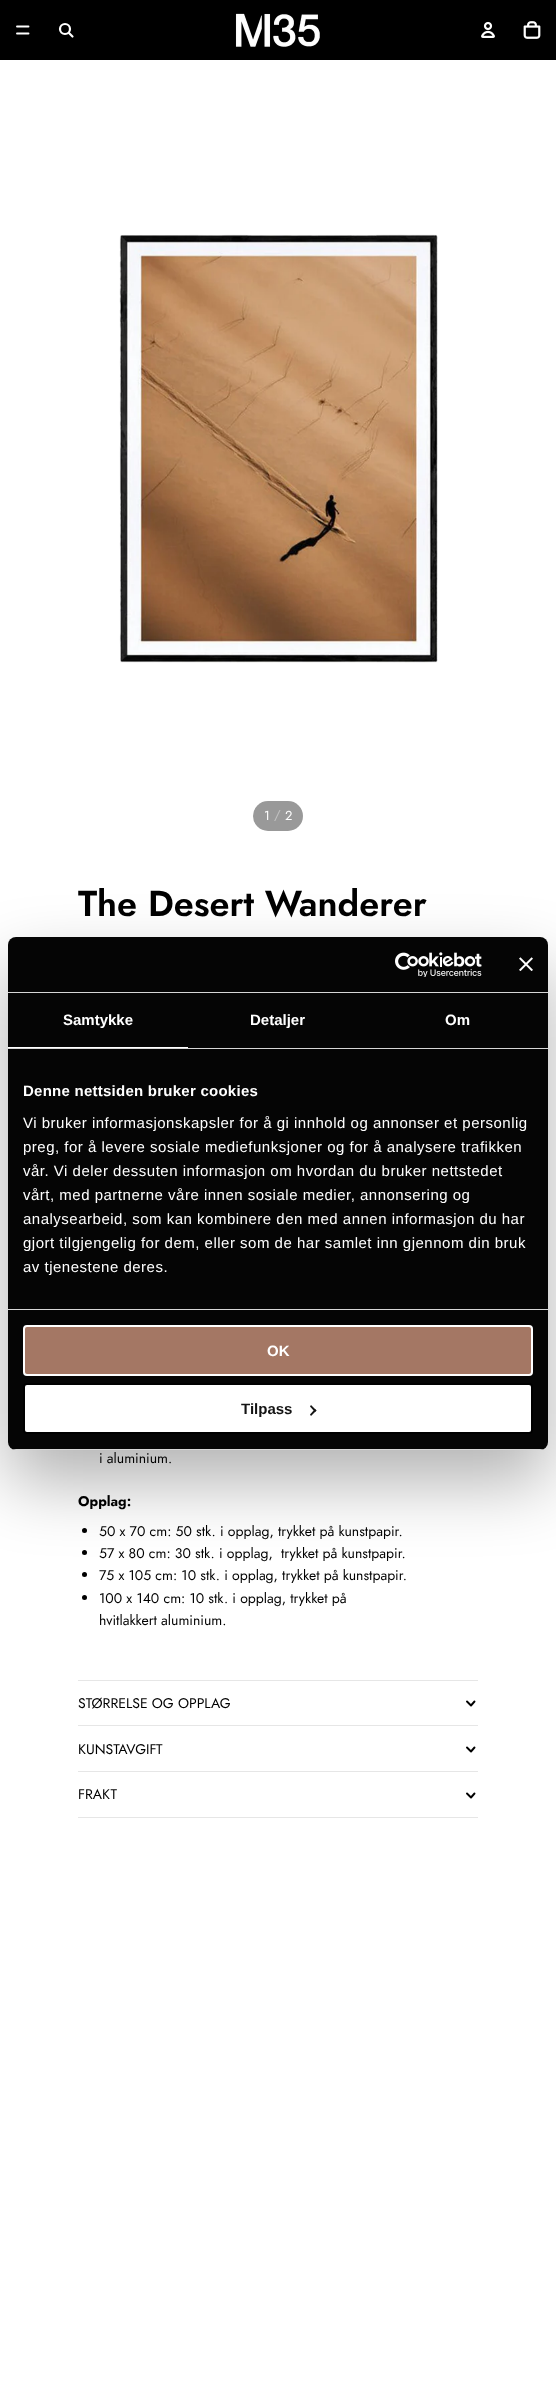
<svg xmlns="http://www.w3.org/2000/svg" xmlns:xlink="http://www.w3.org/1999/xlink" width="556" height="2387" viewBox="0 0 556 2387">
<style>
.cls-1{font:13px Jost;fill:#ffffff}
.cls-2{font:13px Jost;fill:#c2c2c2}
.cls-3{font:600 36px Jost;fill:#000000}
.cls-4{font:14px Jost;fill:#000000}
.cls-5{font:bold 14px Jost;fill:#000000}
.cls-6{font:bold 15px Liberation Sans;fill:#ffffff}
.cls-7{font:bold 15px Liberation Sans;letter-spacing:0.25px;fill:#ffffff}
.cls-8{font:15px Liberation Sans;letter-spacing:0.5px;fill:#ffffff}
.cls-9{font:bold 15px Liberation Sans;fill:#141414}
</style>
<defs>
<clipPath id="clip1"><rect x="8" y="937" width="540" height="513" rx="8"/></clipPath>
</defs>
<rect width="100%" height="100%" fill="#000000"/>
<path fill="none" stroke="#ffffff" stroke-width="1.9" stroke-linecap="round" d="M17 26.5H28.5M17 33.5H28.5"/>
<circle fill="none" stroke="#ffffff" stroke-width="2.2" cx="65" cy="29" r="5"/>
<path fill="none" stroke="#ffffff" stroke-width="2.2" stroke-linecap="round" stroke-linejoin="round" d="M69 33L72.5 36.5"/>
<image xlink:href="image0.png" x="235" y="13" width="85" height="34"/>
<image xlink:href="image1.png" x="481" y="21" width="14" height="17"/>
<image xlink:href="image2.png" x="523" y="21" width="18" height="18"/>
<rect fill="#ffffff" x="0" y="60" width="556" height="2327"/>
<image xlink:href="image3.png" x="119" y="234" width="319" height="429"/>
<rect fill="#999999" x="253" y="801" width="50" height="30" rx="15"/>
<circle fill="#000000" cx="84.5" cy="1530.5" r="2.5"/>
<circle fill="#000000" cx="84.5" cy="1552.5" r="2.5"/>
<circle fill="#000000" cx="84.5" cy="1574.5" r="2.5"/>
<circle fill="#000000" cx="84.5" cy="1597.5" r="2.5"/>
<rect fill="#e6e6e6" x="78" y="1680" width="400" height="1"/>
<rect fill="#e6e6e6" x="78" y="1725" width="400" height="1"/>
<path fill="none" stroke="#000000" stroke-width="1.9" stroke-linecap="round" stroke-linejoin="round" d="M474.5 1701.5L471 1705.5L467 1701.5M474.5 1747.5L471 1751.5L467 1747.5"/>
<rect fill="#e6e6e6" x="78" y="1771" width="400" height="1"/>
<rect fill="#e6e6e6" x="78" y="1817" width="400" height="1"/>
<path fill="none" stroke="#000000" stroke-width="1.9" stroke-linecap="round" stroke-linejoin="round" d="M474.5 1793.5L471 1797.5L467 1793.5"/>
<rect fill="#000000" fill-opacity="0.3" filter="blur(34px)" x="8" y="969" width="540" height="513" rx="8"/>
<rect fill="#050505" x="8" y="937" width="540" height="513" rx="8"/>
<rect fill="#d6d6d6" x="8" y="992" width="540" height="1"/>
<image xlink:href="image4.png" x="395" y="952" width="87" height="25"/>
<image xlink:href="image5.png" x="519" y="957" width="14" height="14"/>
<rect fill="#d6d6d6" x="8" y="1048" width="540" height="1"/>
<rect fill="#ffffff" x="8" y="1047" width="180" height="1"/>
<rect fill="#d6d6d6" x="8" y="1309" width="540" height="1"/>
<g clip-path="url(#clip1)">
<rect fill="#d6d6d6" x="8" y="1449" width="540" height="1"/>
</g>
<rect fill="#a47764" stroke="#ffffff" stroke-width="2" x="24" y="1326" width="508" height="49" rx="3"/>
<rect fill="#ffffff" stroke="#000000" stroke-width="2" x="24" y="1384" width="508" height="49" rx="3"/>
<path fill="#141414" d="M311 1405L316.5 1410.5L315 1412L310 1406.5Z"/>
<path fill="#141414" d="M315 1409L316.5 1410.5L311 1416L310 1414.5Z"/>
<text class="cls-1" x="264" y="820">1</text>
<text class="cls-2" x="274" y="819">/</text>
<text class="cls-1" x="285" y="820">2</text>
<text class="cls-3" x="78" y="916">The Desert Wanderer</text>
<text class="cls-4" x="99" y="1463">i aluminium.</text>
<text class="cls-5" x="78" y="1506">Opplag:</text>
<text class="cls-4"><tspan x="99" y="1536">50 x 70 cm: 50 stk. i opplag, trykket på kunstpapir.</tspan><tspan x="99" y="1558">57 x 80 cm: 30 stk. i opplag,</tspan></text>
<text class="cls-4" x="281" y="1558">trykket på kunstpapir.</text>
<text class="cls-4"><tspan x="99" y="1580">75 x 105 cm: 10 stk. i opplag, trykket på kunstpapir.</tspan><tspan x="99" y="1603">100 x 140 cm: 10 stk. i opplag, trykket på</tspan><tspan x="99" y="1625">hvitlakkert aluminium.</tspan></text>
<text class="cls-4" x="78" y="1708">STØRRELSE OG OPPLAG</text>
<text class="cls-4" x="78" y="1754">KUNSTAVGIFT</text>
<text class="cls-4" x="78" y="1799">FRAKT</text>
<text class="cls-6" x="63" y="1025">Samtykke</text>
<text class="cls-6" x="250" y="1025">Detaljer</text>
<text class="cls-6" x="445" y="1025">Om</text>
<text class="cls-7" x="23" y="1096">Denne nettsiden bruker cookies</text>
<text class="cls-8"><tspan x="23" y="1128">Vi bruker informasjonskapsler for å gi innhold og annonser et personlig</tspan><tspan x="23" y="1152">preg, for å levere sosiale mediefunksjoner og for å analysere trafikken</tspan><tspan x="23" y="1176">vår. Vi deler dessuten informasjon om hvordan du bruker nettstedet</tspan><tspan x="23" y="1200">vårt, med partnerne våre innen sosiale medier, annonsering og</tspan><tspan x="23" y="1224">analysearbeid, som kan kombinere den med annen informasjon du har</tspan><tspan x="23" y="1248">gjort tilgjengelig for dem, eller som de har samlet inn gjennom din bruk</tspan><tspan x="23" y="1272">av tjenestene deres.</tspan></text>
<text class="cls-6" x="267" y="1356">OK</text>
<text class="cls-9" x="241" y="1414">Tilpass</text>
</svg>
